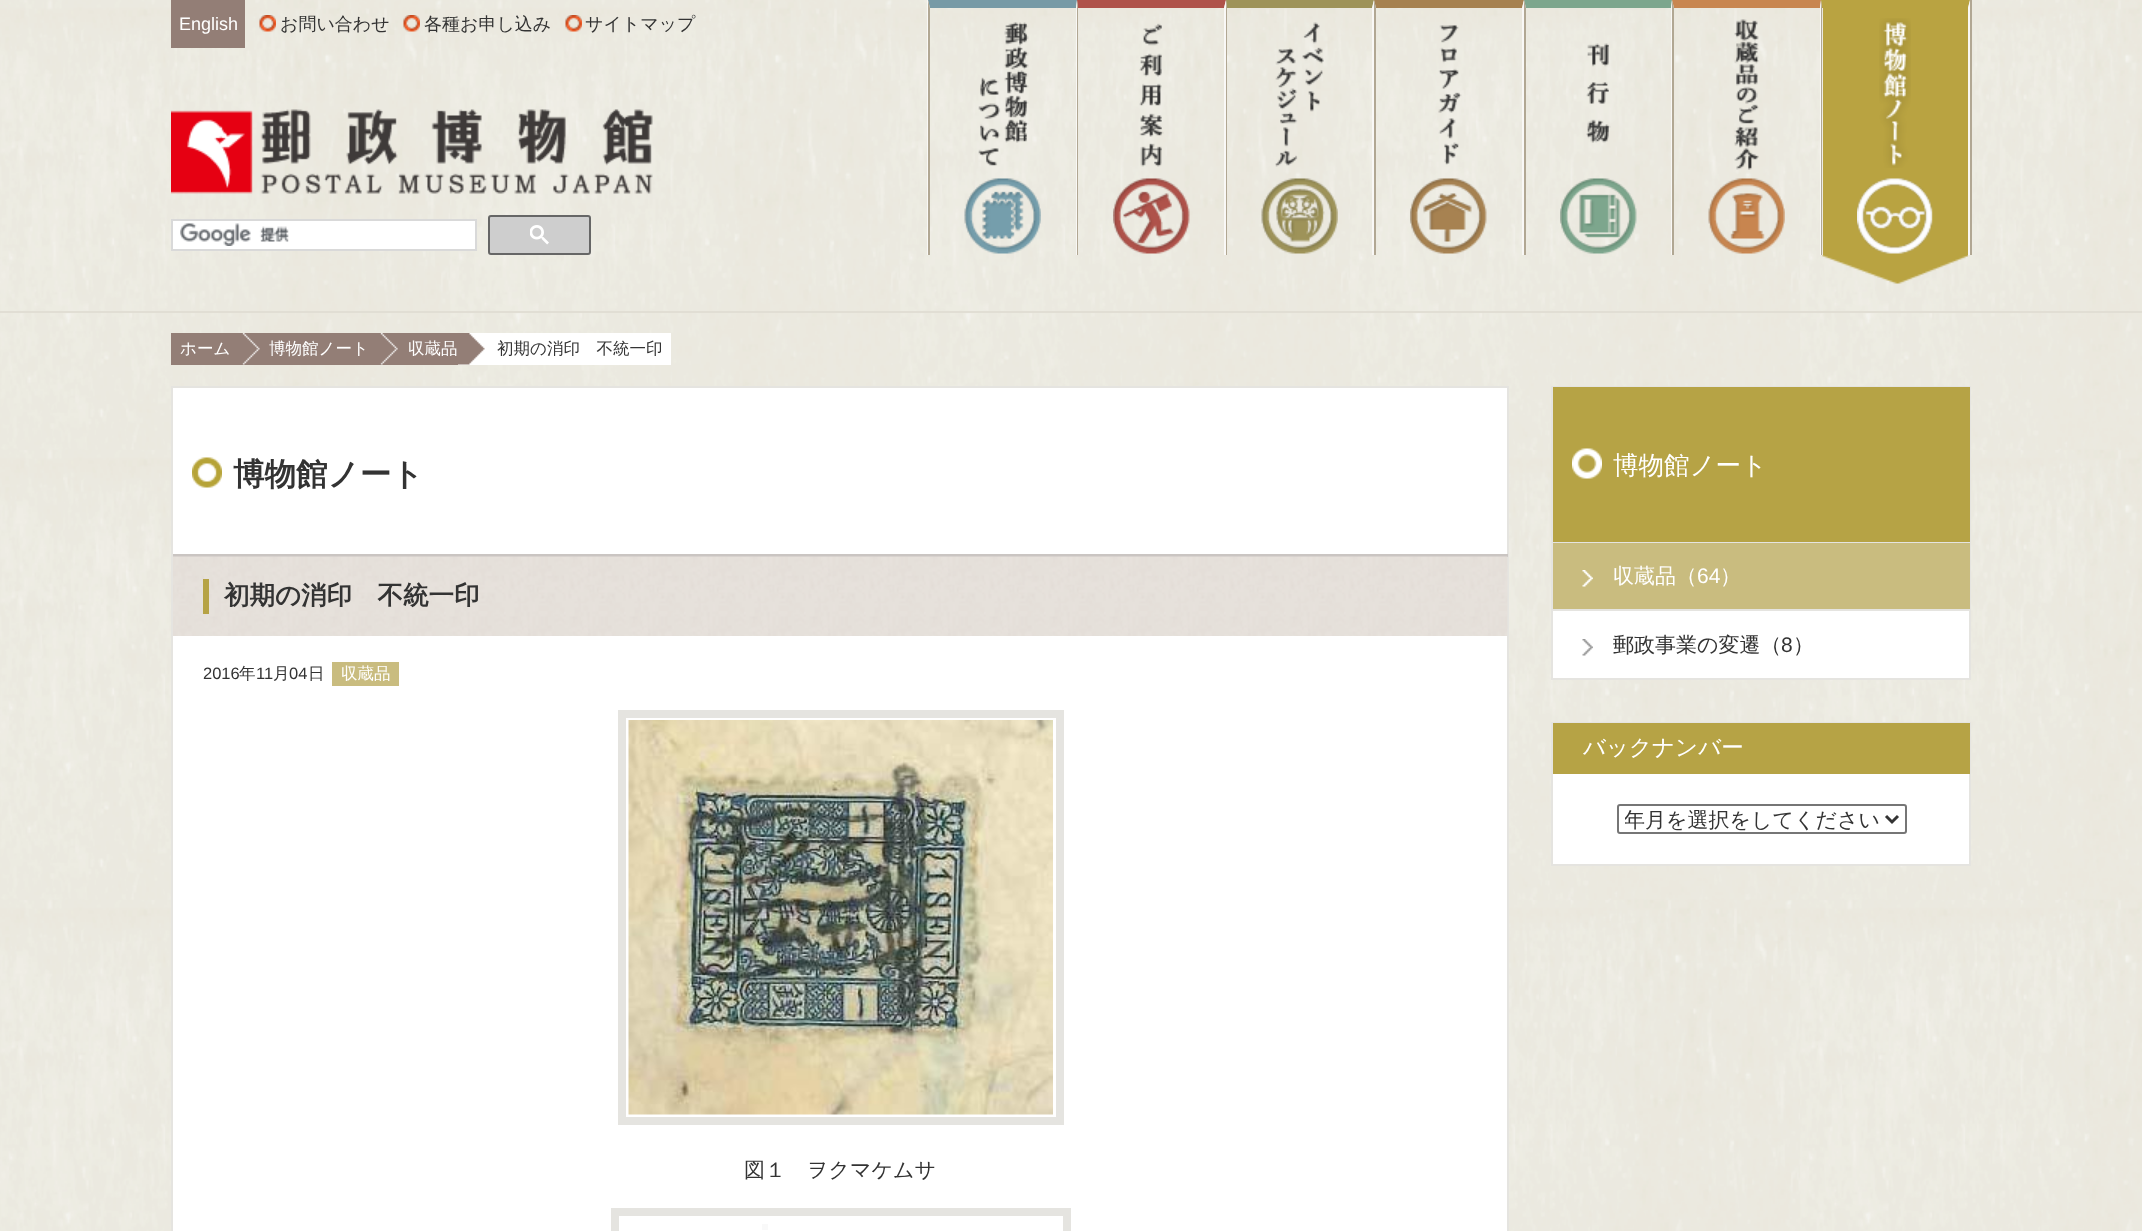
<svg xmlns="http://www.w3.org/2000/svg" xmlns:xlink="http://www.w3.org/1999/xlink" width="2142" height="1231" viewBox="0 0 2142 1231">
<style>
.cls-1{font:18px Liberation Sans;fill:#ffffff}
.cls-2{font:500 18px WenQuanYi Zen Hei;fill:#333333}
.cls-3{font:500 16.5px WenQuanYi Zen Hei;fill:#ffffff}
.cls-4{font:500 16.5px WenQuanYi Zen Hei;fill:#333333}
.cls-5{font:bold 31.5px WenQuanYi Zen Hei;fill:#333333}
.cls-6{font:bold 25.5px WenQuanYi Zen Hei;fill:#333333}
.cls-7{font:16.5px Liberation Sans;fill:#333333}
.cls-8{font:500 21px WenQuanYi Zen Hei;fill:#333333}
.cls-9{font:500 25.5px WenQuanYi Zen Hei;fill:#ffffff}
.cls-10{font:500 21px WenQuanYi Zen Hei;fill:#ffffff}
.cls-11{font:21px Liberation Sans;fill:#ffffff}
.cls-12{font:21px Liberation Sans;fill:#333333}
.cls-13{font:500 22.5px WenQuanYi Zen Hei;fill:#ffffff}
</style>
<defs>
<clipPath id="clip1"><rect x="1625" y="806" width="256" height="27"/></clipPath>
</defs>
<rect width="100%" height="100%" fill="#ffffff"/>
<image xlink:href="image0.png" x="0" y="0" width="2142" height="1231"/>
<rect fill="#e1ded4" x="0" y="311" width="2142" height="2"/>
<rect fill="#937e76" x="171" y="0" width="74" height="48"/>
<image xlink:href="image1.png" x="259" y="15" width="17" height="17"/>
<image xlink:href="image2.png" x="403" y="15" width="17" height="17"/>
<image xlink:href="image3.png" x="565" y="15" width="17" height="17"/>
<rect fill="#b1a793" x="1970" y="0" width="2" height="255"/>
<rect fill="#f9f8f6" x="927" y="0" width="2" height="255"/>
<path fill="#779aa6" d="M928 0H1077L1076 8H930Z"/>
<path fill="#f9f8f6" d="M1077 0V255H1076V8Z"/>
<path fill="#b1a793" d="M928 255V0L930 8V255Z"/>
<image xlink:href="image4.png" x="978" y="22" width="51" height="144"/>
<image xlink:href="image5.png" x="964" y="178" width="77" height="76"/>
<path fill="#af524a" d="M1077 0H1226L1224 8H1078Z"/>
<path fill="#f9f8f6" d="M1226 0V255H1224V8Z"/>
<path fill="#b1a793" d="M1077 255V0L1078 8V255Z"/>
<image xlink:href="image6.png" x="1139" y="23" width="25" height="144"/>
<image xlink:href="image7.png" x="1113" y="178" width="77" height="76"/>
<path fill="#9e9359" d="M1226 0H1374L1372 8H1227Z"/>
<path fill="#f9f8f6" d="M1374 0V255H1372V8Z"/>
<path fill="#b1a793" d="M1226 255V0L1227 8V255Z"/>
<image xlink:href="image8.png" x="1275" y="22" width="49" height="145"/>
<image xlink:href="image9.png" x="1261" y="178" width="77" height="76"/>
<path fill="#a68150" d="M1374 0H1524L1522 8H1376Z"/>
<path fill="#f9f8f6" d="M1524 0V255H1522V8Z"/>
<path fill="#b1a793" d="M1374 255V0L1376 8V255Z"/>
<image xlink:href="image10.png" x="1438" y="25" width="24" height="140"/>
<image xlink:href="image11.png" x="1410" y="178" width="77" height="76"/>
<path fill="#7da68d" d="M1524 0H1672L1671 8H1526Z"/>
<path fill="#f9f8f6" d="M1672 0V255H1671V8Z"/>
<path fill="#b1a793" d="M1524 255V0L1526 8V255Z"/>
<image xlink:href="image12.png" x="1586" y="43" width="25" height="100"/>
<image xlink:href="image13.png" x="1560" y="178" width="77" height="76"/>
<path fill="#c88650" d="M1672 0H1821L1820 8H1674Z"/>
<path fill="#f9f8f6" d="M1821 0V255H1820V8Z"/>
<path fill="#b1a793" d="M1672 255V0L1674 8V255Z"/>
<image xlink:href="image14.png" x="1734" y="19" width="25" height="151"/>
<image xlink:href="image15.png" x="1708" y="178" width="77" height="76"/>
<path fill="#b9a341" d="M1821 0H1970L1968 8H1822Z"/>
<path fill="#f9f8f6" d="M1970 0V255H1968V8Z"/>
<path fill="#b1a793" d="M1821 255V0L1822 8V255Z"/>
<rect fill="#b9a341" x="1823" y="8" width="145" height="247"/>
<image xlink:href="image16.png" x="1879" y="18" width="32" height="150"/>
<image xlink:href="image17.png" x="1857" y="178" width="76" height="76"/>
<image xlink:href="image18.png" x="1822" y="255" width="146" height="29"/>
<rect fill="#ffffff" stroke="#d9d9d9" stroke-width="2" x="172" y="220" width="304" height="30"/>
<image xlink:href="image19.png" x="180" y="223" width="109" height="23"/>
<rect fill="#cecece" stroke="#666666" stroke-width="2" x="489" y="216" width="101" height="38" rx="2"/>
<image xlink:href="image20.png" x="530" y="225" width="19" height="20"/>
<image xlink:href="image21.png" x="171" y="109" width="482" height="85"/>
<rect fill="#937e76" x="171" y="333" width="287" height="32"/>
<image xlink:href="image22.png" x="242" y="333" width="18" height="32"/>
<image xlink:href="image23.png" x="380" y="333" width="18" height="32"/>
<rect fill="#ffffff" x="458" y="333" width="213" height="32"/>
<image xlink:href="image24.png" x="458" y="333" width="27" height="32"/>
<rect fill="#ffffff" stroke="#e5e4e0" stroke-width="2" x="172" y="387" width="1336" height="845"/>
<image xlink:href="image25.png" x="192" y="457" width="30" height="31"/>
<rect fill="#cac5c2" x="173" y="554" width="1335" height="3"/>
<image xlink:href="image26.png" x="173" y="556" width="1335" height="80"/>
<rect fill="#b6a345" x="203" y="579" width="6" height="35"/>
<rect fill="#c9bc7f" x="332" y="662" width="67" height="24"/>
<rect fill="none" stroke="#e5e4e0" stroke-width="8" x="622" y="714" width="438" height="407"/>
<image xlink:href="image27.png" x="628" y="720" width="425" height="395"/>
<rect fill="none" stroke="#e5e4e0" stroke-width="8" x="615" y="1212" width="452" height="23"/>
<rect fill="#f9f9f9" x="762" y="1224" width="6" height="6"/>
<rect fill="#ffffff" x="1553" y="611" width="416" height="67"/>
<rect fill="none" stroke="#e5e4e0" stroke-width="2" x="1552" y="387" width="418" height="292"/>
<rect fill="#b6a345" x="1553" y="387" width="417" height="155"/>
<image xlink:href="image28.png" x="1572" y="448" width="30" height="31"/>
<rect fill="#e5e4e0" x="1553" y="542" width="417" height="1"/>
<rect fill="#c9bc7f" x="1553" y="543" width="417" height="66"/>
<image xlink:href="image29.png" x="1582" y="570" width="11" height="17"/>
<rect fill="#e5e4e0" x="1553" y="609" width="417" height="2"/>
<image xlink:href="image30.png" x="1582" y="639" width="11" height="17"/>
<rect fill="#ffffff" x="1553" y="774" width="416" height="90"/>
<rect fill="none" stroke="#e5e4e0" stroke-width="2" x="1552" y="723" width="418" height="142"/>
<rect fill="#b6a345" x="1553" y="723" width="417" height="51"/>
<rect fill="none" stroke="#767676" stroke-width="2" x="1618" y="805" width="288" height="28" rx="2"/>
<path fill="none" stroke="#333333" stroke-width="3" d="M1886 816L1892 822L1898 816"/>
<text class="cls-1" x="179" y="30">English</text>
<text class="cls-2" x="280" y="30">お問い合わせ</text>
<text class="cls-2" x="424" y="30">各種お申し込み</text>
<text class="cls-2" x="585" y="30">サイトマップ</text>
<text class="cls-3" x="180" y="354">ホーム</text>
<text class="cls-3" x="269" y="354">博物館ノート</text>
<text class="cls-3" x="408" y="354">収蔵品</text>
<text class="cls-4" x="497" y="354">初期の消印　不統一印</text>
<text class="cls-5" x="233" y="485">博物館ノート</text>
<text class="cls-6" x="224" y="604">初期の消印　不統一印</text>
<text class="cls-7" x="203" y="679">2016</text>
<text class="cls-4" x="239" y="679">年</text>
<text class="cls-7" x="256" y="679">11</text>
<text class="cls-4" x="273" y="679">月</text>
<text class="cls-7" x="289" y="679">04</text>
<text class="cls-4" x="308" y="679">日</text>
<text class="cls-3" x="341" y="679">収蔵品</text>
<text class="cls-8" x="744" y="1177">図１　ヲクマケムサ</text>
<text class="cls-9" x="1613" y="474">博物館ノート</text>
<text class="cls-10" x="1613" y="583">収蔵品（</text>
<text class="cls-11" x="1697" y="583">64</text>
<text class="cls-10" x="1720" y="583">）</text>
<text class="cls-8" x="1613" y="652">郵政事業の変遷（</text>
<text class="cls-12" x="1781" y="652">8</text>
<text class="cls-8" x="1793" y="652">）</text>
<text class="cls-13" x="1583" y="755">バックナンバー</text>
<g clip-path="url(#clip1)">
<text class="cls-8" x="1624" y="827">年月を選択をしてください</text>
</g>
</svg>
